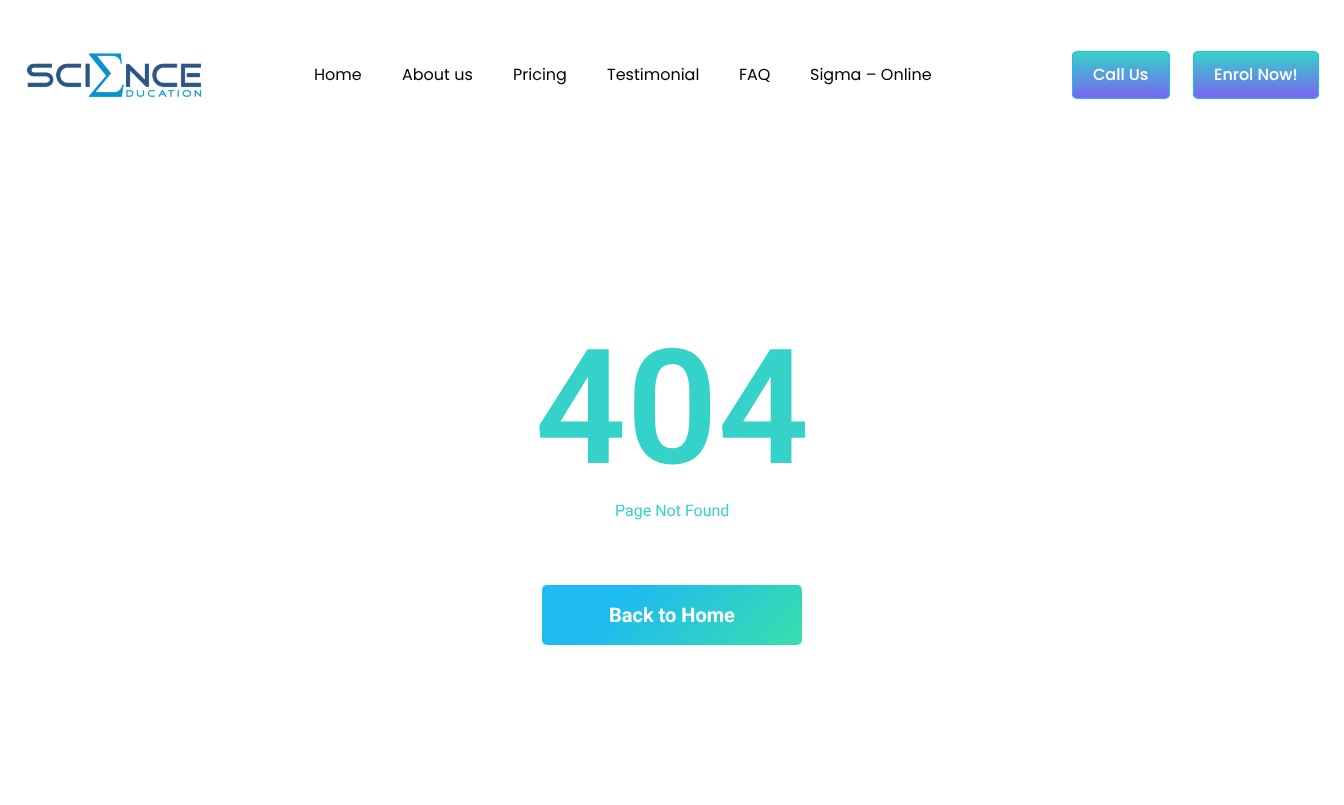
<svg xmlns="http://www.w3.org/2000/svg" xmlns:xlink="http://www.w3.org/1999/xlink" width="1344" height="805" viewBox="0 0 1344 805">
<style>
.cls-1{font:16px Poppins;fill:#000000}
.cls-2{font:500 16px Poppins;fill:#ffffff}
.cls-3{font:600 160px Roboto;fill:#35d2c9}
.cls-4{font:16px Roboto;fill:#35d2c9}
.cls-5{font:bold 20px Roboto;fill:#ffffff}
</style>
<defs>
<clipPath id="clip1"><rect x="1072" y="51" width="98" height="48" rx="5"/></clipPath>
<linearGradient id="g1" gradientUnits="userSpaceOnUse" x1="1121" y1="52" x2="1121" y2="98"><stop offset="0" stop-color="#35d2c9"/><stop offset="1" stop-color="#7866f0"/></linearGradient>
<clipPath id="clip2"><rect x="1193" y="51" width="126" height="48" rx="5"/></clipPath>
<linearGradient id="g2" gradientUnits="userSpaceOnUse" x1="1256" y1="52" x2="1256" y2="98"><stop offset="0" stop-color="#35d2c9"/><stop offset="1" stop-color="#7866f0"/></linearGradient>
<linearGradient id="g3" gradientUnits="userSpaceOnUse" x1="592" y1="535" x2="752" y2="695"><stop offset="0.3" stop-color="#1ebbf0"/><stop offset="1" stop-color="#39dfaa"/></linearGradient>
</defs>
<rect width="100%" height="100%" fill="#ffffff"/>
<image xlink:href="image0.png" x="27" y="53" width="175" height="45"/>
<g clip-path="url(#clip1)">
<rect fill="url(#g1)" x="1072" y="52" width="98" height="46"/>
</g>
<rect fill="none" stroke="#1ebbf0" x="1072.5" y="51.5" width="97" height="47" rx="4.5"/>
<g clip-path="url(#clip2)">
<rect fill="url(#g2)" x="1193" y="52" width="126" height="46"/>
</g>
<rect fill="none" stroke="#1ebbf0" x="1193.5" y="51.5" width="125" height="47" rx="4.5"/>
<rect fill="url(#g3)" x="542" y="585" width="260" height="60" rx="5"/>
<text class="cls-1" x="314" y="80">Home</text>
<text class="cls-1" x="402" y="80">About us</text>
<text class="cls-1" x="513" y="80">Pricing</text>
<text class="cls-1" x="607" y="80">Testimonial</text>
<text class="cls-1" x="739" y="80">FAQ</text>
<text class="cls-1" x="810" y="80">Sigma – Online</text>
<text class="cls-2" x="1093" y="80">Call Us</text>
<text class="cls-2" x="1214" y="80">Enrol Now!</text>
<text class="cls-3" x="535" y="463">404</text>
<text class="cls-4" x="615" y="516">Page Not Found</text>
<text class="cls-5" x="609" y="622">Back to Home</text>
</svg>
